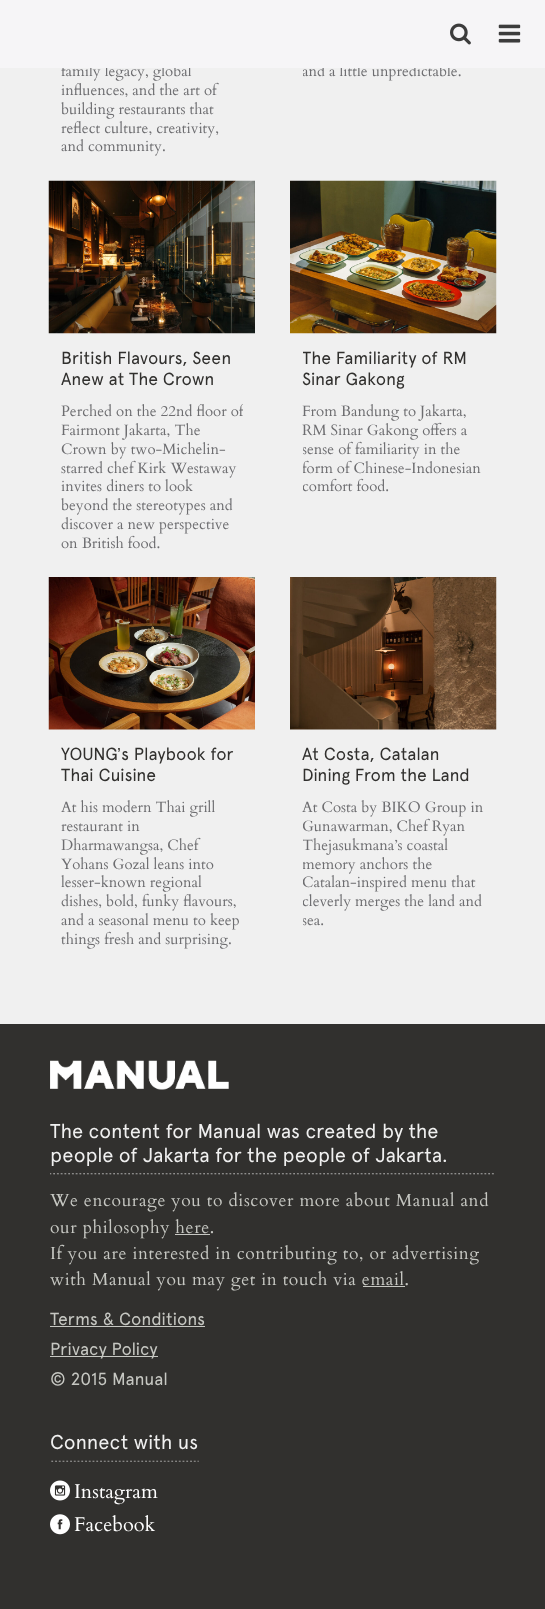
<svg xmlns="http://www.w3.org/2000/svg" xmlns:xlink="http://www.w3.org/1999/xlink" width="545" height="1609" viewBox="0 0 545 1609">
<style>
.cls-1{font:15px Cardo;fill:#6d6d70}
.cls-2{font:17.5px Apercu;fill:#31302e}
.cls-3{font:17.5px Liberation Sans;fill:#31302e}
.cls-4{font:20px Apercu;fill:#f0f0f0}
.cls-5{font:17.5px Cardo;letter-spacing:0.62px;fill:#c6c7c2}
.cls-6{font:17.5px Apercu;fill:#c6c7c2}
.cls-7{font:20px Cardo;fill:#ffffff}
</style>
<defs>
<clipPath id="clip1"><rect x="303" y="6" width="181" height="75"/></clipPath>
<clipPath id="clip2"><rect x="61" y="403" width="182" height="150"/></clipPath>
<clipPath id="clip3"><rect x="303" y="346" width="181" height="44"/></clipPath>
<clipPath id="clip4"><rect x="303" y="403" width="181" height="93"/></clipPath>
<clipPath id="clip5"><rect x="303" y="799" width="181" height="131"/></clipPath>
</defs>
<rect width="100%" height="100%" fill="#31302e"/>
<rect fill="#f0f0f0" x="0" y="68" width="545" height="956"/>
<image xlink:href="image2.png" x="48" y="180" width="207" height="154"/>
<image xlink:href="image3.png" x="290" y="180" width="207" height="154"/>
<image xlink:href="image4.png" x="48" y="577" width="207" height="153"/>
<image xlink:href="image5.png" x="290" y="577" width="207" height="153"/>
<image xlink:href="image6.png" x="50" y="1060" width="179" height="30"/>
<image xlink:href="image7.png" x="50" y="1173" width="444" height="2"/>
<rect fill="#c6c7c2" x="175" y="1234" width="35" height="1"/>
<rect fill="#c6c7c2" x="363" y="1286" width="42" height="1"/>
<rect fill="#c6c7c2" x="50" y="1326" width="155" height="1"/>
<rect fill="#c6c7c2" x="50" y="1356" width="108" height="1"/>
<image xlink:href="image8.png" x="51" y="1460" width="148" height="2"/>
<image xlink:href="image9.png" x="50" y="1480" width="20" height="21"/>
<image xlink:href="image10.png" x="50" y="1514" width="20" height="21"/>
<text class="cls-1"><tspan x="61" y="76">family legacy, global</tspan><tspan x="61" y="95">influences, and the art of</tspan><tspan x="61" y="114">building restaurants that</tspan><tspan x="61" y="133">reflect culture, creativity,</tspan><tspan x="61" y="151">and community.</tspan></text>
<g clip-path="url(#clip1)">
<text class="cls-1" x="302" y="76">and a little unpredictable.</text>
</g>
<rect fill="#f6f5f7" x="0" y="0" width="545" height="68"/>
<image xlink:href="image0.png" x="450" y="23" width="21" height="22"/>
<image xlink:href="image1.png" x="498" y="24" width="23" height="19"/>
<text class="cls-2"><tspan x="61" y="364">British Flavours, Seen</tspan><tspan x="61" y="385">Anew at The Crown</tspan></text>
<g clip-path="url(#clip2)">
<text class="cls-1" x="61" y="416">Perched on the 22nd floor of</text>
</g>
<text class="cls-1"><tspan x="61" y="435">Fairmont Jakarta, The</tspan><tspan x="61" y="454">Crown by two-Michelin-</tspan><tspan x="61" y="473">starred chef Kirk Westaway</tspan><tspan x="61" y="491">invites diners to look</tspan><tspan x="61" y="510">beyond the stereotypes and</tspan><tspan x="61" y="529">discover a new perspective</tspan><tspan x="61" y="548">on British food.</tspan></text>
<g clip-path="url(#clip3)">
<text class="cls-2" x="302" y="364">The Familiarity of RM</text>
</g>
<text class="cls-2" x="302" y="385">Sinar Gakong</text>
<text class="cls-1"><tspan x="302" y="416">From Bandung to Jakarta,</tspan><tspan x="302" y="435">RM Sinar Gakong offers a</tspan></text>
<g clip-path="url(#clip4)">
<text class="cls-1"><tspan x="302" y="454">sense of familiarity in the</tspan><tspan x="302" y="473">form of Chinese-Indonesian</tspan><tspan x="302" y="491">comfort food.</tspan></text>
</g>
<text class="cls-2" x="61" y="760">YOUNG</text>
<text class="cls-3" x="117" y="760">’</text>
<text class="cls-2" x="121" y="760">s Playbook for</text>
<text class="cls-2" x="61" y="781">Thai Cuisine</text>
<text class="cls-1"><tspan x="61" y="812">At his modern Thai grill</tspan><tspan x="61" y="831">restaurant in</tspan><tspan x="61" y="850">Dharmawangsa, Chef</tspan><tspan x="61" y="869">Yohans Gozal leans into</tspan><tspan x="61" y="887">lesser-known regional</tspan><tspan x="61" y="906">dishes, bold, funky flavours,</tspan><tspan x="61" y="925">and a seasonal menu to keep</tspan><tspan x="61" y="944">things fresh and surprising.</tspan></text>
<text class="cls-2"><tspan x="302" y="760">At Costa, Catalan</tspan><tspan x="302" y="781">Dining From the Land</tspan></text>
<text class="cls-1" x="302" y="812">At Costa by BIKO Group in</text>
<g clip-path="url(#clip5)">
<text class="cls-1"><tspan x="302" y="831">Gunawarman, Chef Ryan</tspan><tspan x="302" y="850">Thejasukmana’s coastal</tspan><tspan x="302" y="869">memory anchors the</tspan><tspan x="302" y="887">Catalan-inspired menu that</tspan><tspan x="302" y="906">cleverly merges the land and</tspan><tspan x="302" y="925">sea.</tspan></text>
</g>
<text class="cls-4"><tspan x="50" y="1138">The content for Manual was created by the</tspan><tspan x="50" y="1162">people of Jakarta for the people of Jakarta.</tspan></text>
<text class="cls-5"><tspan x="50" y="1206">We encourage you to discover more about Manual and</tspan><tspan x="50" y="1233">our philosophy here.</tspan><tspan x="50" y="1259">If you are interested in contributing to, or advertising</tspan><tspan x="50" y="1285">with Manual you may get in touch via email.</tspan></text>
<text class="cls-6"><tspan x="50" y="1325">Terms &amp; Conditions</tspan><tspan x="50" y="1355">Privacy Policy</tspan><tspan x="50" y="1385">© 2015 Manual</tspan></text>
<text class="cls-4" x="50" y="1449">Connect with us</text>
<text class="cls-7"><tspan x="74" y="1498">Instagram</tspan><tspan x="74" y="1531">Facebook</tspan></text>
</svg>
